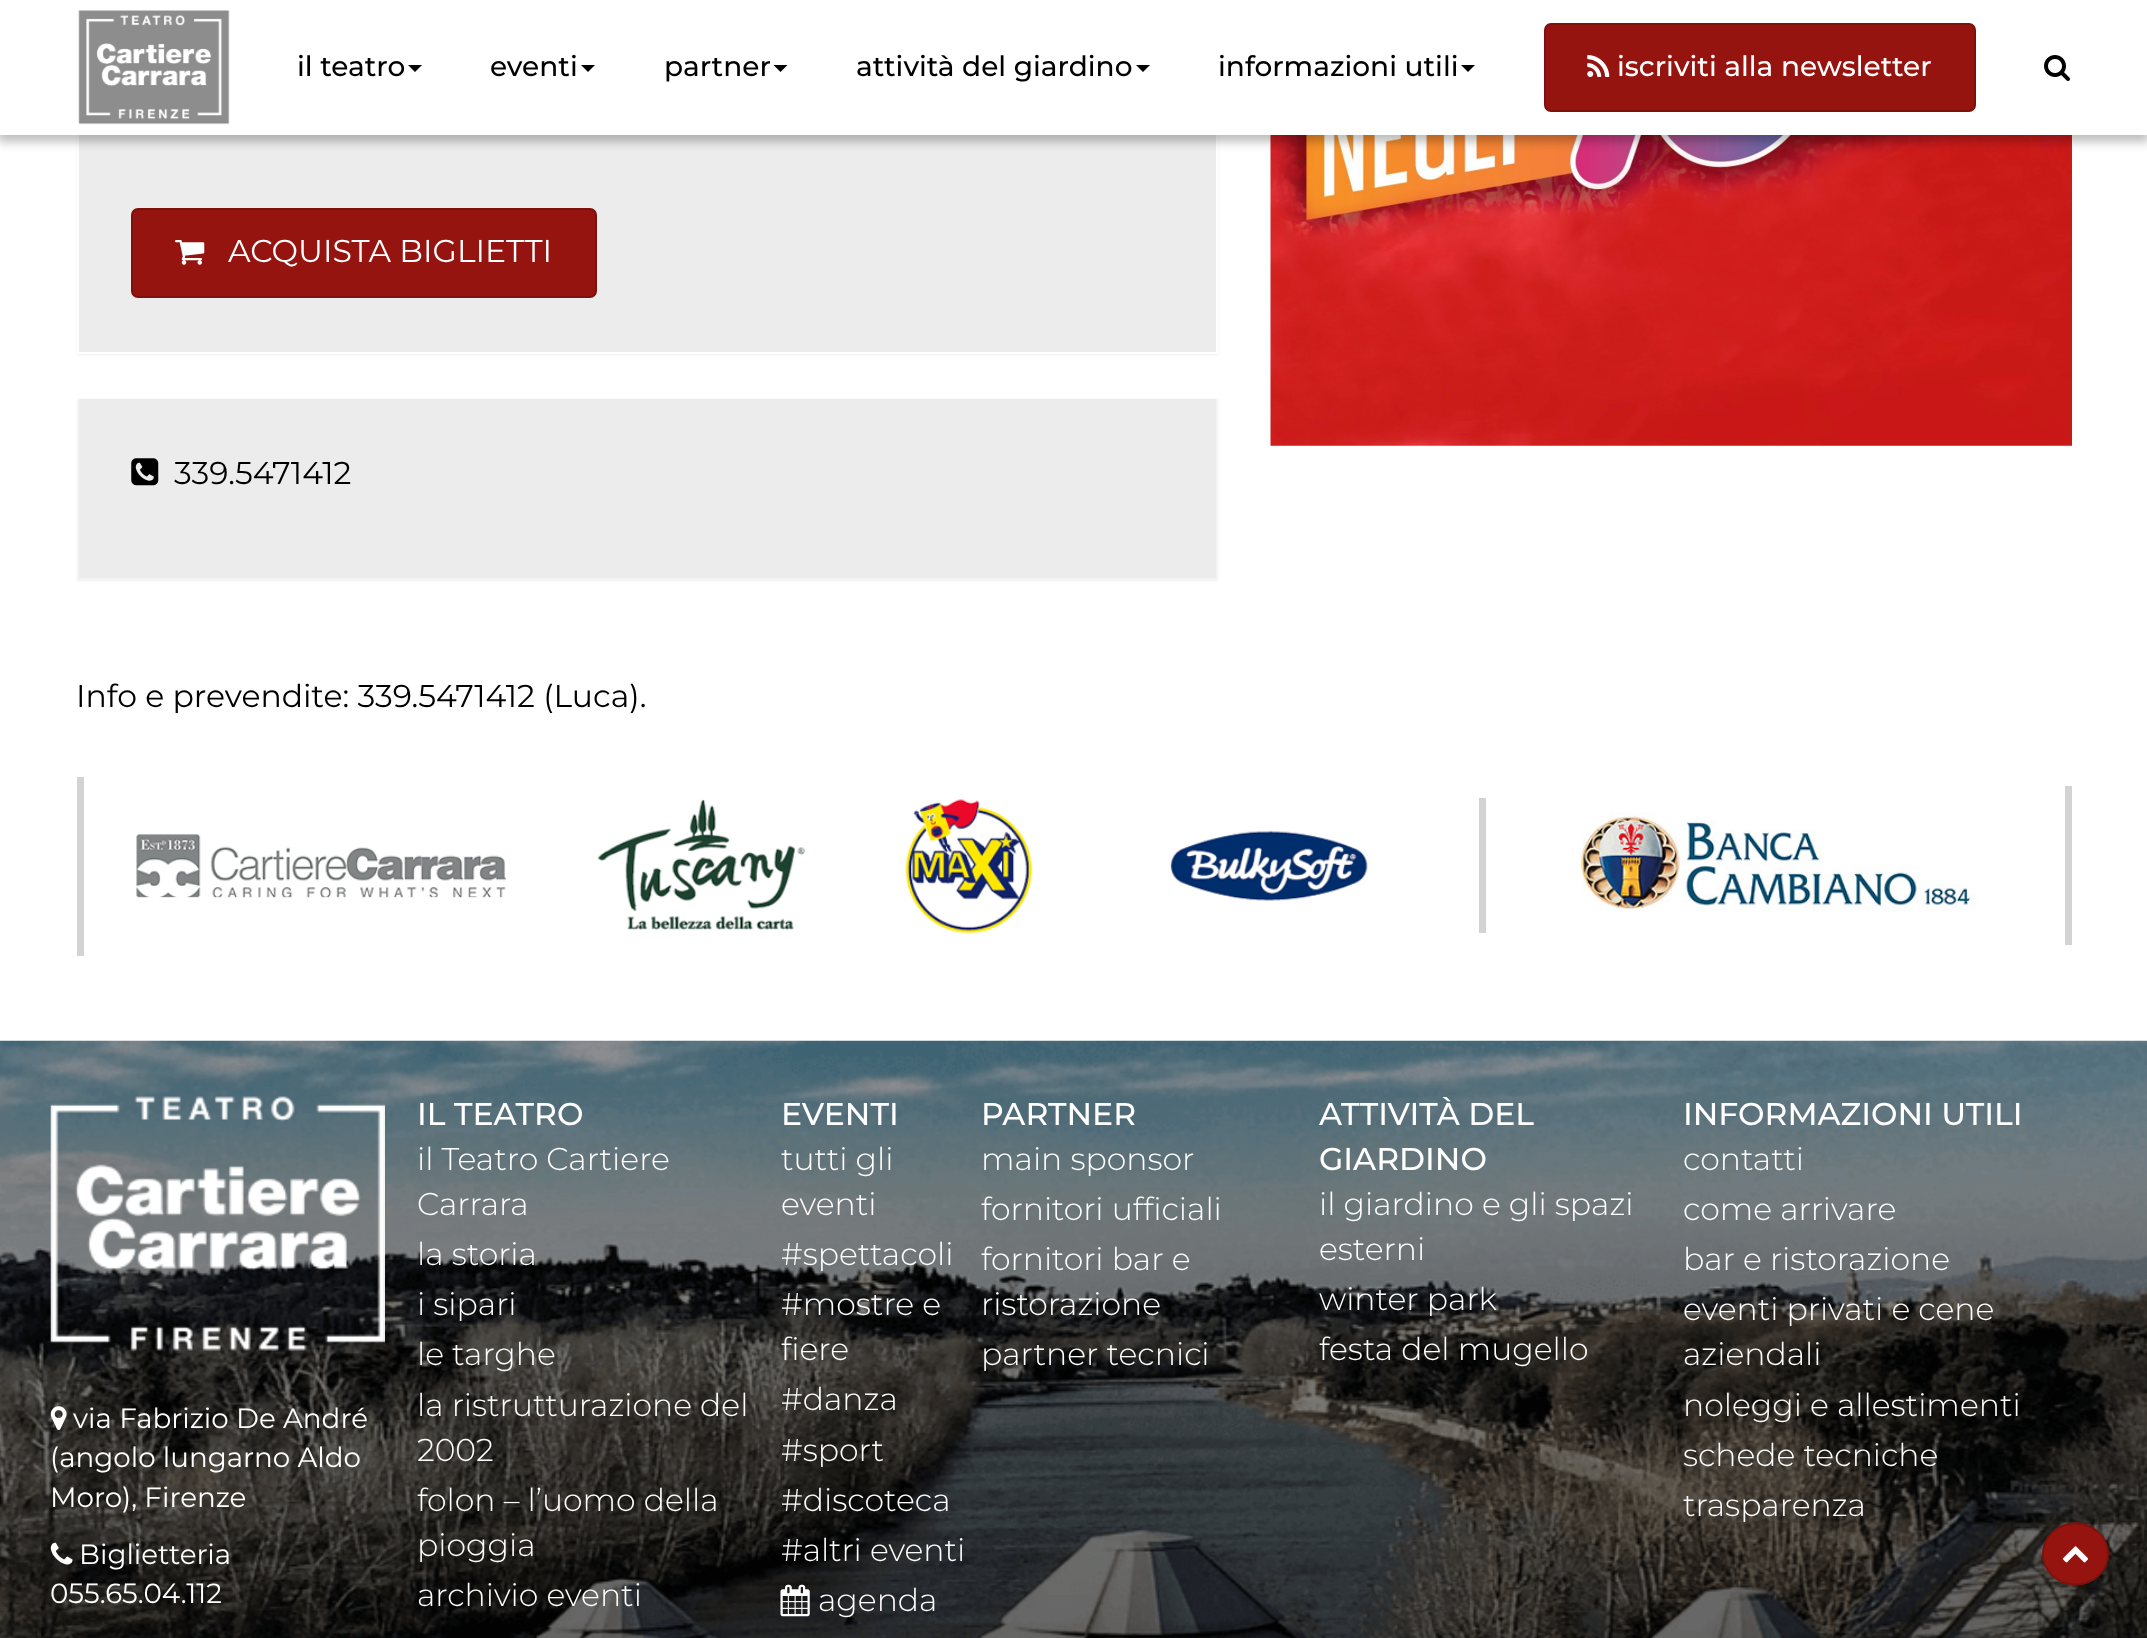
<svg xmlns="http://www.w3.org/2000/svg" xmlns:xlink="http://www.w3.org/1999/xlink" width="2147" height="1638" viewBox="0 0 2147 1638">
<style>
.cls-1{font:500 28px Montserrat;fill:#000000}
.cls-2{font:500 28px Montserrat;fill:#ffffff}
.cls-3{font:31.5px Montserrat;fill:#ffffff}
.cls-4{font:31.5px Montserrat;fill:#000000}
.cls-5{font:27.75px Montserrat;fill:#ffffff}
.cls-6{font:500 31.5px Montserrat;fill:#ffffff}
.cls-7{font:300 31.5px Montserrat;fill:#ffffff}
</style>
<rect width="100%" height="100%" fill="#ffffff"/>
<rect fill="#000000" fill-opacity="0.05" filter="blur(1px)" x="77" y="-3" width="1141" height="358"/>
<rect fill="#ffffff" x="77" y="135" width="1141" height="219"/>
<rect fill="#ececec" x="79" y="135" width="1137" height="217"/>
<image xlink:href="image5.png" x="1270" y="135" width="802" height="311"/>
<rect fill="#000000" fill-opacity="0.25" filter="blur(5px)" x="-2" y="4" width="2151" height="138"/>
<rect fill="#ffffff" x="0" y="0" width="2147" height="135"/>
<image xlink:href="image0.png" x="78" y="10" width="152" height="115"/>
<path fill="#000000" d="M408 65H422L415 72Z"/>
<path fill="#000000" d="M581 65H595L588 72Z"/>
<path fill="#000000" d="M773.5 65H787.5L780.5 72Z"/>
<path fill="#000000" d="M1136 65H1150L1143 72Z"/>
<path fill="#000000" d="M1461 65H1475L1468 72Z"/>
<rect fill="#96140f" stroke="#7f110d" stroke-width="2" x="1545" y="24" width="430" height="87" rx="6"/>
<image xlink:href="image1.png" x="1587" y="55" width="23" height="22"/>
<image xlink:href="image2.png" x="2044" y="55" width="26" height="26"/>
<rect fill="#96140f" stroke="#7f110d" stroke-width="2" x="132" y="209" width="464" height="88" rx="6"/>
<image xlink:href="image3.png" x="175" y="240" width="30" height="25"/>
<rect fill="#000000" fill-opacity="0.05" filter="blur(1px)" x="77" y="399" width="1141" height="182"/>
<rect fill="#ececec" x="79" y="399" width="1137" height="179"/>
<image xlink:href="image4.png" x="131" y="458" width="28" height="28"/>
<rect fill="#d3d3d3" x="77" y="777" width="7" height="179"/>
<image xlink:href="image6.png" x="136" y="834" width="370" height="64"/>
<image xlink:href="image7.png" x="597" y="799" width="209" height="131"/>
<image xlink:href="image8.png" x="905" y="799" width="128" height="135"/>
<rect fill="#d3d3d3" x="1479" y="798" width="7" height="135"/>
<image xlink:href="image9.png" x="1170" y="830" width="198" height="71"/>
<rect fill="#d3d3d3" x="2065" y="786" width="7" height="159"/>
<image xlink:href="image10.png" x="1578" y="812" width="398" height="99"/>
<image xlink:href="image11.png" x="0" y="1040" width="2147" height="598"/>
<image xlink:href="image12.png" x="50" y="1096" width="335" height="255"/>
<image xlink:href="image13.png" x="50" y="1406" width="17" height="24"/>
<image xlink:href="image14.png" x="50" y="1542" width="23" height="23"/>
<image xlink:href="image15.png" x="780" y="1584" width="30" height="33"/>
<ellipse fill="#96140f" cx="2075.5" cy="1554" rx="33" ry="31.5"/>
<path fill="none" stroke="#7f110d" stroke-width="1.8" d="M2075.5 1523.5C2093.5 1523.5 2108 1537 2108 1554C2108 1571 2093.5 1584.5 2075.5 1584.5C2057.5 1584.5 2043 1571 2043 1554C2043 1537 2057.5 1523.5 2075.5 1523.5Z"/>
<image xlink:href="image16.png" x="2062" y="1546" width="27" height="17"/>
<text class="cls-1" x="297" y="76">il teatro</text>
<text class="cls-1" x="490" y="76">eventi</text>
<text class="cls-1" x="664" y="76">partner</text>
<text class="cls-1" x="856" y="76">attività del giardino</text>
<text class="cls-1" x="1218" y="76">informazioni utili</text>
<text class="cls-2" x="1617" y="76">iscriviti alla newsletter</text>
<text class="cls-3" x="228" y="262">ACQUISTA BIGLIETTI</text>
<text class="cls-4" x="174" y="484">339.5471412</text>
<text class="cls-4" x="76" y="707">Info e prevendite: 339.5471412 (Luca).</text>
<text class="cls-5" x="73" y="1428">via Fabrizio De André</text>
<text class="cls-5"><tspan x="50" y="1467">(angolo lungarno Aldo</tspan><tspan x="50" y="1507">Moro), Firenze</tspan></text>
<text class="cls-5" x="79" y="1564">Biglietteria</text>
<text class="cls-5" x="50" y="1603">055.65.04.112</text>
<text class="cls-6" x="417" y="1125">IL TEATRO</text>
<text class="cls-7"><tspan x="417" y="1170">il Teatro Cartiere</tspan><tspan x="417" y="1215">Carrara</tspan><tspan x="417" y="1265">la storia</tspan><tspan x="417" y="1315">i sipari</tspan><tspan x="417" y="1365">le targhe</tspan><tspan x="417" y="1416">la ristrutturazione del</tspan><tspan x="417" y="1461">2002</tspan><tspan x="417" y="1511">folon – l’uomo della</tspan><tspan x="417" y="1556">pioggia</tspan><tspan x="417" y="1606">archivio eventi</tspan></text>
<text class="cls-6" x="781" y="1125">EVENTI</text>
<text class="cls-7"><tspan x="781" y="1170">tutti gli</tspan><tspan x="781" y="1215">eventi</tspan><tspan x="781" y="1265">#spettacoli</tspan><tspan x="781" y="1315">#mostre e</tspan><tspan x="781" y="1360">fiere</tspan><tspan x="781" y="1410">#danza</tspan><tspan x="781" y="1461">#sport</tspan><tspan x="781" y="1511">#discoteca</tspan><tspan x="781" y="1561">#altri eventi</tspan></text>
<text class="cls-7" x="818" y="1611">agenda</text>
<text class="cls-6" x="981" y="1125">PARTNER</text>
<text class="cls-7"><tspan x="981" y="1170">main sponsor</tspan><tspan x="981" y="1220">fornitori ufficiali</tspan><tspan x="981" y="1270">fornitori bar e</tspan><tspan x="981" y="1315">ristorazione</tspan><tspan x="981" y="1365">partner tecnici</tspan></text>
<text class="cls-6"><tspan x="1319" y="1125">ATTIVITÀ DEL</tspan><tspan x="1319" y="1170">GIARDINO</tspan></text>
<text class="cls-7"><tspan x="1319" y="1215">il giardino e gli spazi</tspan><tspan x="1319" y="1260">esterni</tspan><tspan x="1319" y="1310">winter park</tspan><tspan x="1319" y="1360">festa del mugello</tspan></text>
<text class="cls-6" x="1683" y="1125">INFORMAZIONI UTILI</text>
<text class="cls-7"><tspan x="1683" y="1170">contatti</tspan><tspan x="1683" y="1220">come arrivare</tspan><tspan x="1683" y="1270">bar e ristorazione</tspan><tspan x="1683" y="1320">eventi privati e cene</tspan><tspan x="1683" y="1365">aziendali</tspan><tspan x="1683" y="1416">noleggi e allestimenti</tspan><tspan x="1683" y="1466">schede tecniche</tspan><tspan x="1683" y="1516">trasparenza</tspan></text>
</svg>
